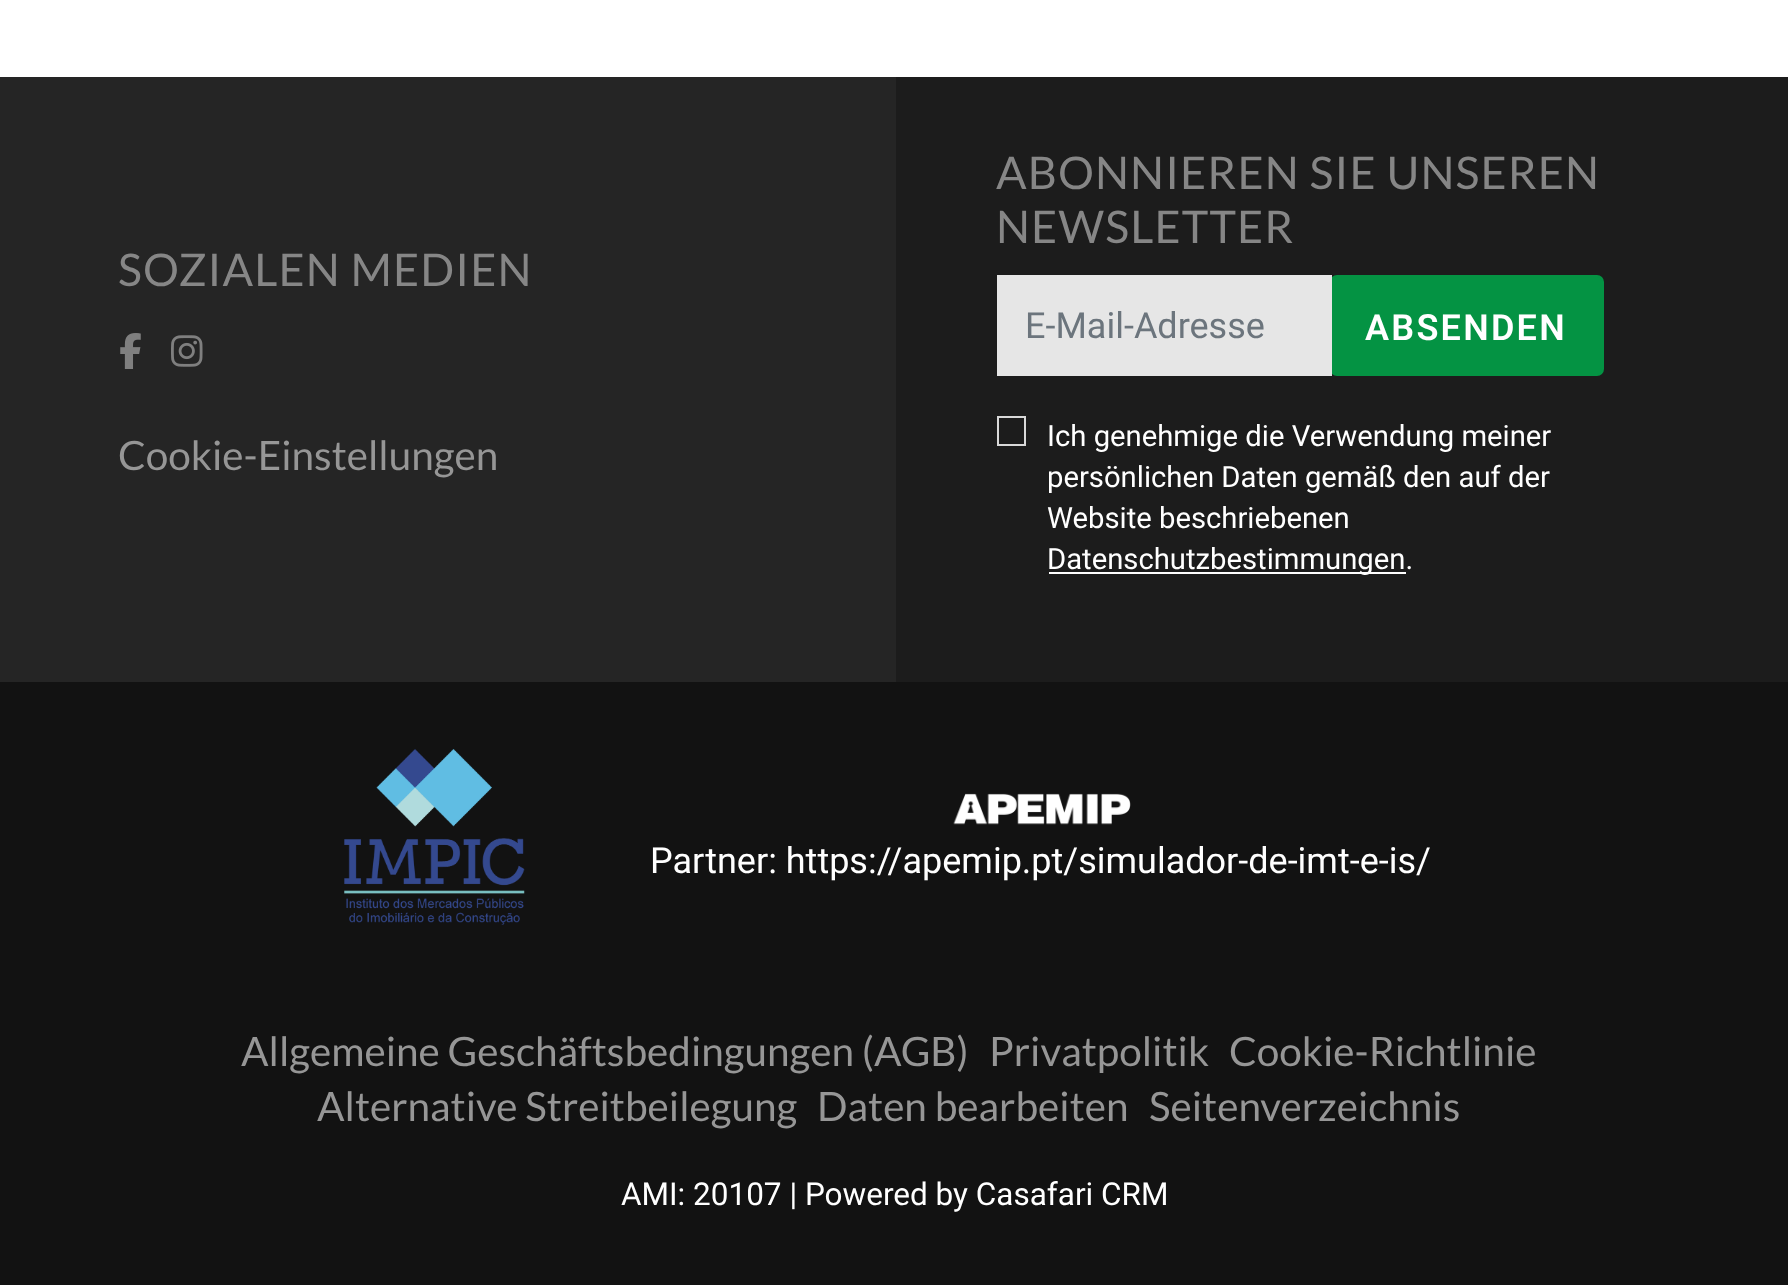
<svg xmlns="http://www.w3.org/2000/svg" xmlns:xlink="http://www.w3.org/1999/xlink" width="1788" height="1285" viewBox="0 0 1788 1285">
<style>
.cls-1{font:45px Lato;letter-spacing:1.1px;fill:#868686}
.cls-2{font:40.5px Lato;fill:#969696}
.cls-3{font:36px Roboto;fill:#6c757d}
.cls-4{font:600 36px Roboto;letter-spacing:2.25px;fill:#ffffff}
.cls-5{font:29.25px Roboto;fill:#ffffff}
.cls-6{font:36px Roboto;fill:#ffffff}
.cls-7{font:31.5px Roboto;fill:#ffffff}
</style>
<rect width="100%" height="100%" fill="#ffffff"/>
<rect fill="#252525" x="0" y="77" width="896" height="605"/>
<rect fill="#1c1c1c" x="896" y="77" width="892" height="605"/>
<image xlink:href="image0.png" x="120" y="333" width="21" height="36"/>
<image xlink:href="image1.png" x="171" y="335" width="32" height="32"/>
<rect fill="#049343" stroke="#049343" stroke-width="2" x="1331" y="276" width="272" height="99" rx="6"/>
<rect fill="#e6e6e6" x="997" y="275" width="335" height="101"/>
<rect fill="none" stroke="#d8d8d8" stroke-width="2" x="998" y="417" width="27" height="28"/>
<rect fill="#ffffff" x="1049" y="572" width="357" height="2"/>
<rect fill="#121212" x="0" y="682" width="1788" height="603"/>
<image xlink:href="image2.png" x="344" y="749" width="181" height="176"/>
<image xlink:href="image3.png" x="953" y="793" width="178" height="32"/>
<text class="cls-1" x="118" y="286">SOZIALEN MEDIEN</text>
<text class="cls-2" x="118" y="470">Cookie-Einstellungen</text>
<text class="cls-1"><tspan x="996" y="189">ABONNIEREN SIE UNSEREN</tspan><tspan x="996" y="243">NEWSLETTER</tspan></text>
<text class="cls-3" x="1025" y="338">E-Mail-Adresse</text>
<text class="cls-4" x="1365" y="340">ABSENDEN</text>
<text class="cls-5"><tspan x="1047" y="446">Ich genehmige die Verwendung meiner</tspan><tspan x="1047" y="487">persönlichen Daten gemäß den auf der</tspan><tspan x="1047" y="528">Website beschriebenen</tspan><tspan x="1047" y="569">Datenschutzbestimmungen.</tspan></text>
<text class="cls-6" x="650" y="873">Partner: https://apemip.pt/simulador-de-imt-e-is/</text>
<text class="cls-2" x="241" y="1066">Allgemeine Geschäftsbedingungen (AGB)</text>
<text class="cls-2" x="989" y="1066">Privatpolitik</text>
<text class="cls-2" x="1229" y="1066">Cookie-Richtlinie</text>
<text class="cls-2" x="317" y="1121">Alternative Streitbeilegung</text>
<text class="cls-2" x="817" y="1121">Daten bearbeiten</text>
<text class="cls-2" x="1149" y="1121">Seitenverzeichnis</text>
<text class="cls-7" x="621" y="1205">AMI: 20107 | Powered by Casafari CRM</text>
</svg>
